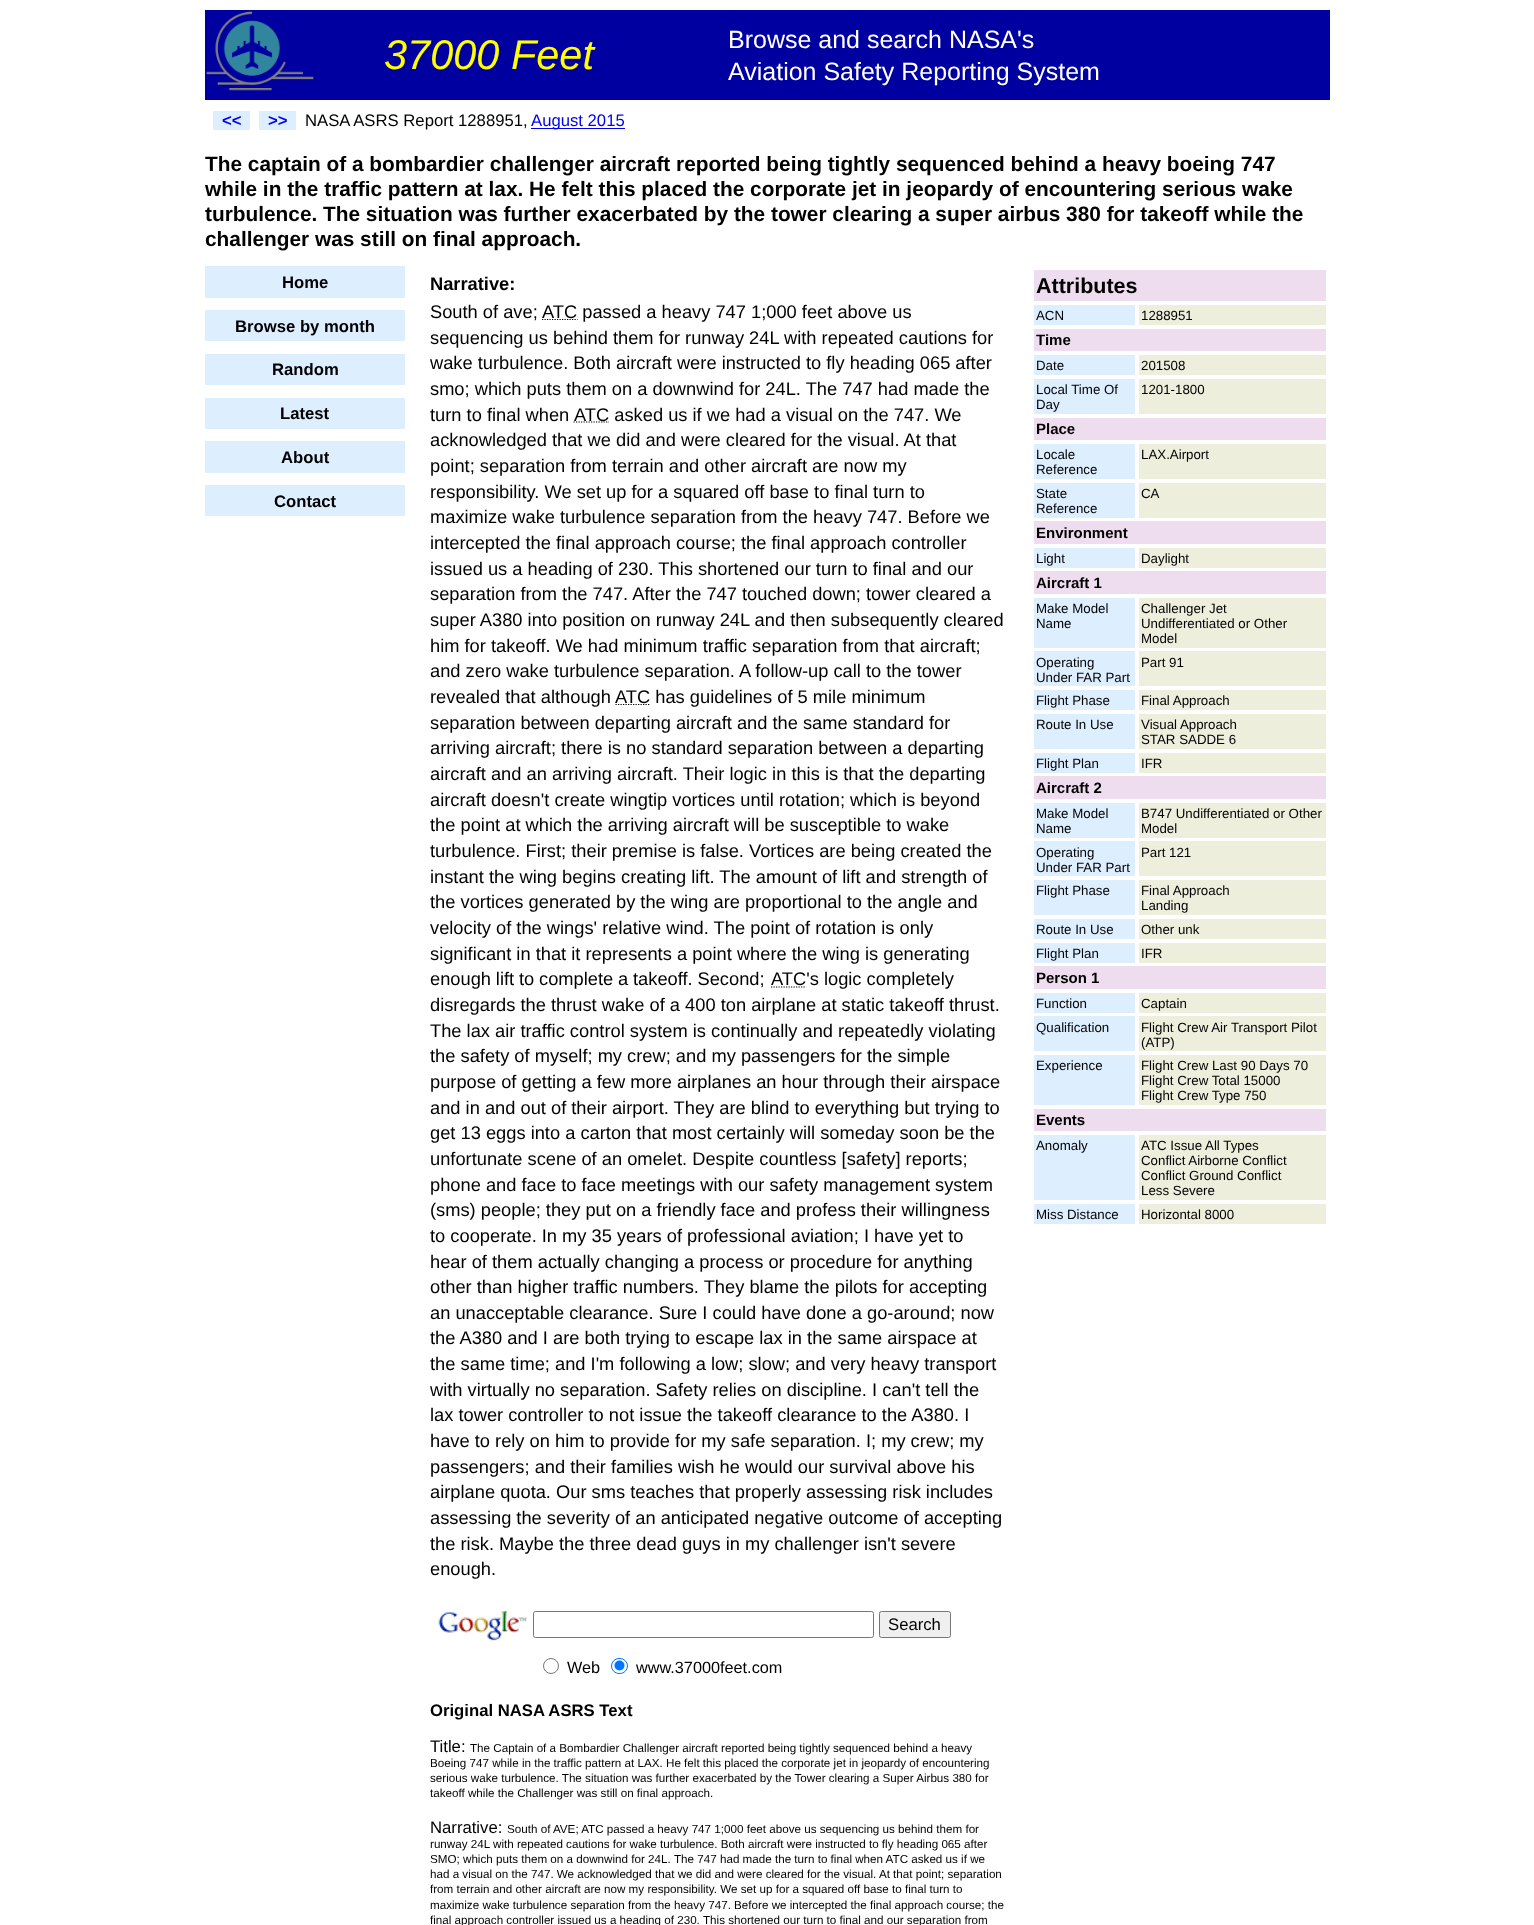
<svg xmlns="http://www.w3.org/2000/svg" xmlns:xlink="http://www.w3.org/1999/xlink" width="1534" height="1925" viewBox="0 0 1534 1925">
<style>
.cls-1{font:italic 41.5px Liberation Sans;fill:#ffff00}
.cls-2{font:25px Liberation Sans;fill:#ffffff}
.cls-3{font:bold 16.7px Liberation Sans;fill:#0000ff}
.cls-4{font:16.7px Liberation Sans;fill:#000000}
.cls-5{font:16.7px Liberation Sans;fill:#0000ee}
.cls-6{font:bold 20.83px Liberation Sans;fill:#000000}
.cls-7{font:bold 16.7px Liberation Sans;fill:#000000}
.cls-8{font:bold 18.3px Liberation Sans;fill:#000000}
.cls-9{font:18.3px Liberation Sans;fill:#000000}
.cls-10{font:16.25px Liberation Sans;fill:#000000}
.cls-11{font:11.65px Liberation Sans;fill:#000000}
.cls-12{font:bold 21.5px Liberation Sans;fill:#000000}
.cls-13{font:13.3px Liberation Sans;fill:#000000}
.cls-14{font:bold 15px Liberation Sans;fill:#000000}
</style>
<rect width="100%" height="100%" fill="#ffffff"/>
<rect fill="#0000a0" x="205" y="10" width="1125" height="90"/>
<image xlink:href="image0.png" x="206" y="11" width="108" height="80"/>
<rect fill="#ddeeff" x="213" y="111" width="37" height="19"/>
<rect fill="#ddeeff" x="259" y="111" width="37" height="19"/>
<rect fill="#0000ee" x="531" y="128" width="94" height="1"/>
<rect fill="#ddeeff" x="205" y="266" width="200" height="32"/>
<rect fill="#ddeeff" x="205" y="310" width="200" height="31"/>
<rect fill="#ddeeff" x="205" y="354" width="200" height="31"/>
<rect fill="#ddeeff" x="205" y="398" width="200" height="31"/>
<rect fill="#ddeeff" x="205" y="441" width="200" height="32"/>
<rect fill="#ddeeff" x="205" y="485" width="200" height="31"/>
<path fill="none" stroke="#000000" stroke-width="1.2" stroke-dasharray="1.25 1.25" d="M542 319.5H577.5"/>
<path fill="none" stroke="#000000" stroke-width="1.2" stroke-dasharray="1.25 1.25" d="M573.5 422H609"/>
<path fill="none" stroke="#000000" stroke-width="1.2" stroke-dasharray="1.25 1.25" d="M615.5 704.5H650.5"/>
<path fill="none" stroke="#000000" stroke-width="1.2" stroke-dasharray="1.25 1.25" d="M771 987H806"/>
<image xlink:href="image1.png" x="438" y="1611" width="89" height="30"/>
<rect fill="none" stroke="#767676" x="533.5" y="1611.5" width="340" height="26" rx="2"/>
<rect fill="#efefef" stroke="#767676" x="879.5" y="1611.5" width="71" height="26" rx="2"/>
<circle fill="none" stroke="#767676" cx="551" cy="1666" r="7.5"/>
<rect fill="none" stroke="#0075ff" x="611.5" y="1658.5" width="16" height="15" rx="7.5"/>
<circle fill="#0075ff" cx="619.5" cy="1665.5" r="5"/>
<rect fill="#eeddee" x="1034" y="270" width="292" height="31"/>
<rect fill="#ddeeff" x="1034" y="305" width="101" height="20"/>
<rect fill="#eeeedd" x="1139" y="305" width="187" height="20"/>
<rect fill="#eeddee" x="1034" y="329" width="292" height="22"/>
<rect fill="#ddeeff" x="1034" y="355" width="101" height="20"/>
<rect fill="#eeeedd" x="1139" y="355" width="187" height="20"/>
<rect fill="#ddeeff" x="1034" y="379" width="101" height="35"/>
<rect fill="#eeeedd" x="1139" y="379" width="187" height="35"/>
<rect fill="#eeddee" x="1034" y="418" width="292" height="22"/>
<rect fill="#ddeeff" x="1034" y="444" width="101" height="35"/>
<rect fill="#eeeedd" x="1139" y="444" width="187" height="35"/>
<rect fill="#ddeeff" x="1034" y="483" width="101" height="35"/>
<rect fill="#eeeedd" x="1139" y="483" width="187" height="35"/>
<rect fill="#eeddee" x="1034" y="521" width="292" height="23"/>
<rect fill="#ddeeff" x="1034" y="548" width="101" height="20"/>
<rect fill="#eeeedd" x="1139" y="548" width="187" height="20"/>
<rect fill="#eeddee" x="1034" y="571" width="292" height="23"/>
<rect fill="#ddeeff" x="1034" y="598" width="101" height="50"/>
<rect fill="#eeeedd" x="1139" y="598" width="187" height="50"/>
<rect fill="#ddeeff" x="1034" y="651" width="101" height="35"/>
<rect fill="#eeeedd" x="1139" y="651" width="187" height="35"/>
<rect fill="#ddeeff" x="1034" y="690" width="101" height="20"/>
<rect fill="#eeeedd" x="1139" y="690" width="187" height="20"/>
<rect fill="#ddeeff" x="1034" y="714" width="101" height="35"/>
<rect fill="#eeeedd" x="1139" y="714" width="187" height="35"/>
<rect fill="#ddeeff" x="1034" y="753" width="101" height="20"/>
<rect fill="#eeeedd" x="1139" y="753" width="187" height="20"/>
<rect fill="#eeddee" x="1034" y="776" width="292" height="23"/>
<rect fill="#ddeeff" x="1034" y="803" width="101" height="35"/>
<rect fill="#eeeedd" x="1139" y="803" width="187" height="35"/>
<rect fill="#ddeeff" x="1034" y="841" width="101" height="35"/>
<rect fill="#eeeedd" x="1139" y="841" width="187" height="35"/>
<rect fill="#ddeeff" x="1034" y="880" width="101" height="35"/>
<rect fill="#eeeedd" x="1139" y="880" width="187" height="35"/>
<rect fill="#ddeeff" x="1034" y="919" width="101" height="20"/>
<rect fill="#eeeedd" x="1139" y="919" width="187" height="20"/>
<rect fill="#ddeeff" x="1034" y="943" width="101" height="20"/>
<rect fill="#eeeedd" x="1139" y="943" width="187" height="20"/>
<rect fill="#eeddee" x="1034" y="966" width="292" height="23"/>
<rect fill="#ddeeff" x="1034" y="993" width="101" height="20"/>
<rect fill="#eeeedd" x="1139" y="993" width="187" height="20"/>
<rect fill="#ddeeff" x="1034" y="1016" width="101" height="35"/>
<rect fill="#eeeedd" x="1139" y="1016" width="187" height="35"/>
<rect fill="#ddeeff" x="1034" y="1055" width="101" height="50"/>
<rect fill="#eeeedd" x="1139" y="1055" width="187" height="50"/>
<rect fill="#eeddee" x="1034" y="1109" width="292" height="22"/>
<rect fill="#ddeeff" x="1034" y="1135" width="101" height="65"/>
<rect fill="#eeeedd" x="1139" y="1135" width="187" height="65"/>
<rect fill="#ddeeff" x="1034" y="1204" width="101" height="20"/>
<rect fill="#eeeedd" x="1139" y="1204" width="187" height="20"/>
<text class="cls-1" x="384" y="69">37000 Feet</text>
<text class="cls-2"><tspan x="728" y="48">Browse and search NASA's</tspan><tspan x="728" y="80">Aviation Safety Reporting System</tspan></text>
<text class="cls-3" x="222" y="126">&lt;&lt;</text>
<text class="cls-3" x="268" y="126">&gt;&gt;</text>
<text class="cls-4" x="305" y="126">NASA ASRS Report 1288951,</text>
<text class="cls-5" x="531" y="126">August 2015</text>
<text class="cls-6"><tspan x="205" y="171">The captain of a bombardier challenger aircraft reported being tightly sequenced behind a heavy boeing 747</tspan><tspan x="205" y="196">while in the traffic pattern at lax. He felt this placed the corporate jet in jeopardy of encountering serious wake</tspan><tspan x="205" y="221">turbulence. The situation was further exacerbated by the tower clearing a super airbus 380 for takeoff while the</tspan><tspan x="205" y="246">challenger was still on final approach.</tspan></text>
<text class="cls-7" x="282" y="288">Home</text>
<text class="cls-7" x="235" y="332">Browse by month</text>
<text class="cls-7" x="272" y="375">Random</text>
<text class="cls-7" x="280" y="419">Latest</text>
<text class="cls-7" x="281" y="463">About</text>
<text class="cls-7" x="274" y="507">Contact</text>
<text class="cls-8" x="430" y="290">Narrative:</text>
<text class="cls-9" x="430" y="318">South of ave;</text>
<text class="cls-9" x="542" y="318">ATC passed a heavy 747 1;000 feet above us</text>
<text class="cls-9"><tspan x="430" y="344">sequencing us behind them for runway 24L with repeated cautions for</tspan><tspan x="430" y="369">wake turbulence. Both aircraft were instructed to fly heading 065 after</tspan><tspan x="430" y="395">smo; which puts them on a downwind for 24L. The 747 had made the</tspan><tspan x="430" y="421">turn to final when</tspan></text>
<text class="cls-9" x="574" y="421">ATC asked us if we had a visual on the 747. We</text>
<text class="cls-9"><tspan x="430" y="446">acknowledged that we did and were cleared for the visual. At that</tspan><tspan x="430" y="472">point; separation from terrain and other aircraft are now my</tspan><tspan x="430" y="498">responsibility. We set up for a squared off base to final turn to</tspan><tspan x="430" y="523">maximize wake turbulence separation from the heavy 747. Before we</tspan><tspan x="430" y="549">intercepted the final approach course; the final approach controller</tspan><tspan x="430" y="575">issued us a heading of 230. This shortened our turn to final and our</tspan><tspan x="430" y="600">separation from the 747. After the 747 touched down; tower cleared a</tspan><tspan x="430" y="626">super A380 into position on runway 24L and then subsequently cleared</tspan><tspan x="430" y="652">him for takeoff. We had minimum traffic separation from that aircraft;</tspan><tspan x="430" y="677">and zero wake turbulence separation. A follow-up call to the tower</tspan><tspan x="430" y="703">revealed that although</tspan></text>
<text class="cls-9" x="615" y="703">ATC has guidelines of 5 mile minimum</text>
<text class="cls-9"><tspan x="430" y="729">separation between departing aircraft and the same standard for</tspan><tspan x="430" y="754">arriving aircraft; there is no standard separation between a departing</tspan><tspan x="430" y="780">aircraft and an arriving aircraft. Their logic in this is that the departing</tspan><tspan x="430" y="806">aircraft doesn't create wingtip vortices until rotation; which is beyond</tspan><tspan x="430" y="831">the point at which the arriving aircraft will be susceptible to wake</tspan><tspan x="430" y="857">turbulence. First; their premise is false. Vortices are being created the</tspan><tspan x="430" y="883">instant the wing begins creating lift. The amount of lift and strength of</tspan><tspan x="430" y="908">the vortices generated by the wing are proportional to the angle and</tspan><tspan x="430" y="934">velocity of the wings' relative wind. The point of rotation is only</tspan><tspan x="430" y="960">significant in that it represents a point where the wing is generating</tspan><tspan x="430" y="985" word-spacing="-0.25">enough lift to complete a takeoff. Second;</tspan></text>
<text class="cls-9" x="771" y="985">ATC's logic completely</text>
<text class="cls-9"><tspan x="430" y="1011">disregards the thrust wake of a 400 ton airplane at static takeoff thrust.</tspan><tspan x="430" y="1037">The lax air traffic control system is continually and repeatedly violating</tspan><tspan x="430" y="1062">the safety of myself; my crew; and my passengers for the simple</tspan><tspan x="430" y="1088">purpose of getting a few more airplanes an hour through their airspace</tspan><tspan x="430" y="1114">and in and out of their airport. They are blind to everything but trying to</tspan><tspan x="430" y="1139">get 13 eggs into a carton that most certainly will someday soon be the</tspan><tspan x="430" y="1165">unfortunate scene of an omelet. Despite countless [safety] reports;</tspan><tspan x="430" y="1191">phone and face to face meetings with our safety management system</tspan><tspan x="430" y="1216">(sms) people; they put on a friendly face and profess their willingness</tspan><tspan x="430" y="1242">to cooperate. In my 35 years of professional aviation; I have yet to</tspan><tspan x="430" y="1268">hear of them actually changing a process or procedure for anything</tspan><tspan x="430" y="1293">other than higher traffic numbers. They blame the pilots for accepting</tspan><tspan x="430" y="1319">an unacceptable clearance. Sure I could have done a go-around; now</tspan><tspan x="430" y="1344">the A380 and I are both trying to escape lax in the same airspace at</tspan><tspan x="430" y="1370">the same time; and I'm following a low; slow; and very heavy transport</tspan><tspan x="430" y="1396">with virtually no separation. Safety relies on discipline. I can't tell the</tspan><tspan x="430" y="1421">lax tower controller to not issue the takeoff clearance to the A380. I</tspan><tspan x="430" y="1447">have to rely on him to provide for my safe separation. I; my crew; my</tspan><tspan x="430" y="1473">passengers; and their families wish he would our survival above his</tspan><tspan x="430" y="1498">airplane quota. Our sms teaches that properly assessing risk includes</tspan><tspan x="430" y="1524">assessing the severity of an anticipated negative outcome of accepting</tspan><tspan x="430" y="1550">the risk. Maybe the three dead guys in my challenger isn't severe</tspan><tspan x="430" y="1575">enough.</tspan></text>
<text class="cls-4" x="888" y="1630">Search</text>
<text class="cls-10" x="567" y="1673">Web</text>
<text class="cls-10" x="636" y="1673">www.37000feet.com</text>
<text class="cls-7" x="430" y="1716">Original NASA ASRS Text</text>
<text class="cls-4" x="430" y="1752">Title:</text>
<text class="cls-11" x="470" y="1752">The Captain of a Bombardier Challenger aircraft reported being tightly sequenced behind a heavy</text>
<text class="cls-11"><tspan x="430" y="1767">Boeing 747 while in the traffic pattern at LAX. He felt this placed the corporate jet in jeopardy of encountering</tspan><tspan x="430" y="1782">serious wake turbulence. The situation was further exacerbated by the Tower clearing a Super Airbus 380 for</tspan><tspan x="430" y="1797">takeoff while the Challenger was still on final approach.</tspan></text>
<text class="cls-4" x="430" y="1833">Narrative:</text>
<text class="cls-11" x="507" y="1833">South of AVE; ATC passed a heavy 747 1;000 feet above us sequencing us behind them for</text>
<text class="cls-11"><tspan x="430" y="1848">runway 24L with repeated cautions for wake turbulence. Both aircraft were instructed to fly heading 065 after</tspan><tspan x="430" y="1863">SMO; which puts them on a downwind for 24L.</tspan></text>
<text class="cls-11" x="674" y="1863">The 747 had made the turn to final when ATC asked us if we</text>
<text class="cls-11"><tspan x="430" y="1878">had a visual on the 747. We acknowledged that we did and were cleared for the visual. At that point; separation</tspan><tspan x="430" y="1893">from terrain and other aircraft are now my responsibility. We set up for a squared off base to final turn to</tspan><tspan x="430" y="1909">maximize wake turbulence separation from the heavy 747. Before we intercepted the final approach course; the</tspan><tspan x="430" y="1924">final approach controller issued us a heading of 230.</tspan></text>
<text class="cls-11" x="703" y="1924">This shortened our turn to final and our separation from</text>
<text class="cls-12" x="1036" y="293">Attributes</text>
<text class="cls-13" x="1036" y="320">ACN</text>
<text class="cls-13" x="1141" y="320">1288951</text>
<text class="cls-14" x="1036" y="345">Time</text>
<text class="cls-13" x="1036" y="370">Date</text>
<text class="cls-13" x="1141" y="370">201508</text>
<text class="cls-13"><tspan x="1036" y="394">Local Time Of</tspan><tspan x="1036" y="409">Day</tspan></text>
<text class="cls-13" x="1141" y="394">1201-1800</text>
<text class="cls-14" x="1036" y="434">Place</text>
<text class="cls-13"><tspan x="1036" y="459">Locale</tspan><tspan x="1036" y="474">Reference</tspan></text>
<text class="cls-13" x="1141" y="459">LAX.Airport</text>
<text class="cls-13"><tspan x="1036" y="498">State</tspan><tspan x="1036" y="513">Reference</tspan></text>
<text class="cls-13" x="1141" y="498">CA</text>
<text class="cls-14" x="1036" y="538">Environment</text>
<text class="cls-13" x="1036" y="563">Light</text>
<text class="cls-13" x="1141" y="563">Daylight</text>
<text class="cls-14" x="1036" y="588">Aircraft 1</text>
<text class="cls-13"><tspan x="1036" y="613">Make Model</tspan><tspan x="1036" y="628">Name</tspan></text>
<text class="cls-13"><tspan x="1141" y="613">Challenger Jet</tspan><tspan x="1141" y="628">Undifferentiated or Other</tspan><tspan x="1141" y="643">Model</tspan></text>
<text class="cls-13"><tspan x="1036" y="667">Operating</tspan><tspan x="1036" y="682">Under FAR Part</tspan></text>
<text class="cls-13" x="1141" y="667">Part 91</text>
<text class="cls-13" x="1036" y="705">Flight Phase</text>
<text class="cls-13" x="1141" y="705">Final Approach</text>
<text class="cls-13" x="1036" y="729">Route In Use</text>
<text class="cls-13"><tspan x="1141" y="729">Visual Approach</tspan><tspan x="1141" y="744">STAR SADDE 6</tspan></text>
<text class="cls-13" x="1036" y="768">Flight Plan</text>
<text class="cls-13" x="1141" y="768">IFR</text>
<text class="cls-14" x="1036" y="793">Aircraft 2</text>
<text class="cls-13"><tspan x="1036" y="818">Make Model</tspan><tspan x="1036" y="833">Name</tspan></text>
<text class="cls-13"><tspan x="1141" y="818">B747 Undifferentiated or Other</tspan><tspan x="1141" y="833">Model</tspan></text>
<text class="cls-13"><tspan x="1036" y="857">Operating</tspan><tspan x="1036" y="872">Under FAR Part</tspan></text>
<text class="cls-13" x="1141" y="857">Part 121</text>
<text class="cls-13" x="1036" y="895">Flight Phase</text>
<text class="cls-13"><tspan x="1141" y="895">Final Approach</tspan><tspan x="1141" y="910">Landing</tspan></text>
<text class="cls-13" x="1036" y="934">Route In Use</text>
<text class="cls-13" x="1141" y="934">Other unk</text>
<text class="cls-13" x="1036" y="958">Flight Plan</text>
<text class="cls-13" x="1141" y="958">IFR</text>
<text class="cls-14" x="1036" y="983">Person 1</text>
<text class="cls-13" x="1036" y="1008">Function</text>
<text class="cls-13" x="1141" y="1008">Captain</text>
<text class="cls-13" x="1036" y="1032">Qualification</text>
<text class="cls-13"><tspan x="1141" y="1032">Flight Crew Air Transport Pilot</tspan><tspan x="1141" y="1047">(ATP)</tspan></text>
<text class="cls-13" x="1036" y="1070">Experience</text>
<text class="cls-13"><tspan x="1141" y="1070">Flight Crew Last 90 Days 70</tspan><tspan x="1141" y="1085">Flight Crew Total 15000</tspan><tspan x="1141" y="1100">Flight Crew Type 750</tspan></text>
<text class="cls-14" x="1036" y="1125">Events</text>
<text class="cls-13" x="1036" y="1150">Anomaly</text>
<text class="cls-13"><tspan x="1141" y="1150">ATC Issue All Types</tspan><tspan x="1141" y="1165">Conflict Airborne Conflict</tspan><tspan x="1141" y="1180">Conflict Ground Conflict</tspan><tspan x="1141" y="1195">Less Severe</tspan></text>
<text class="cls-13" x="1036" y="1219">Miss Distance</text>
<text class="cls-13" x="1141" y="1219">Horizontal 8000</text>
</svg>
